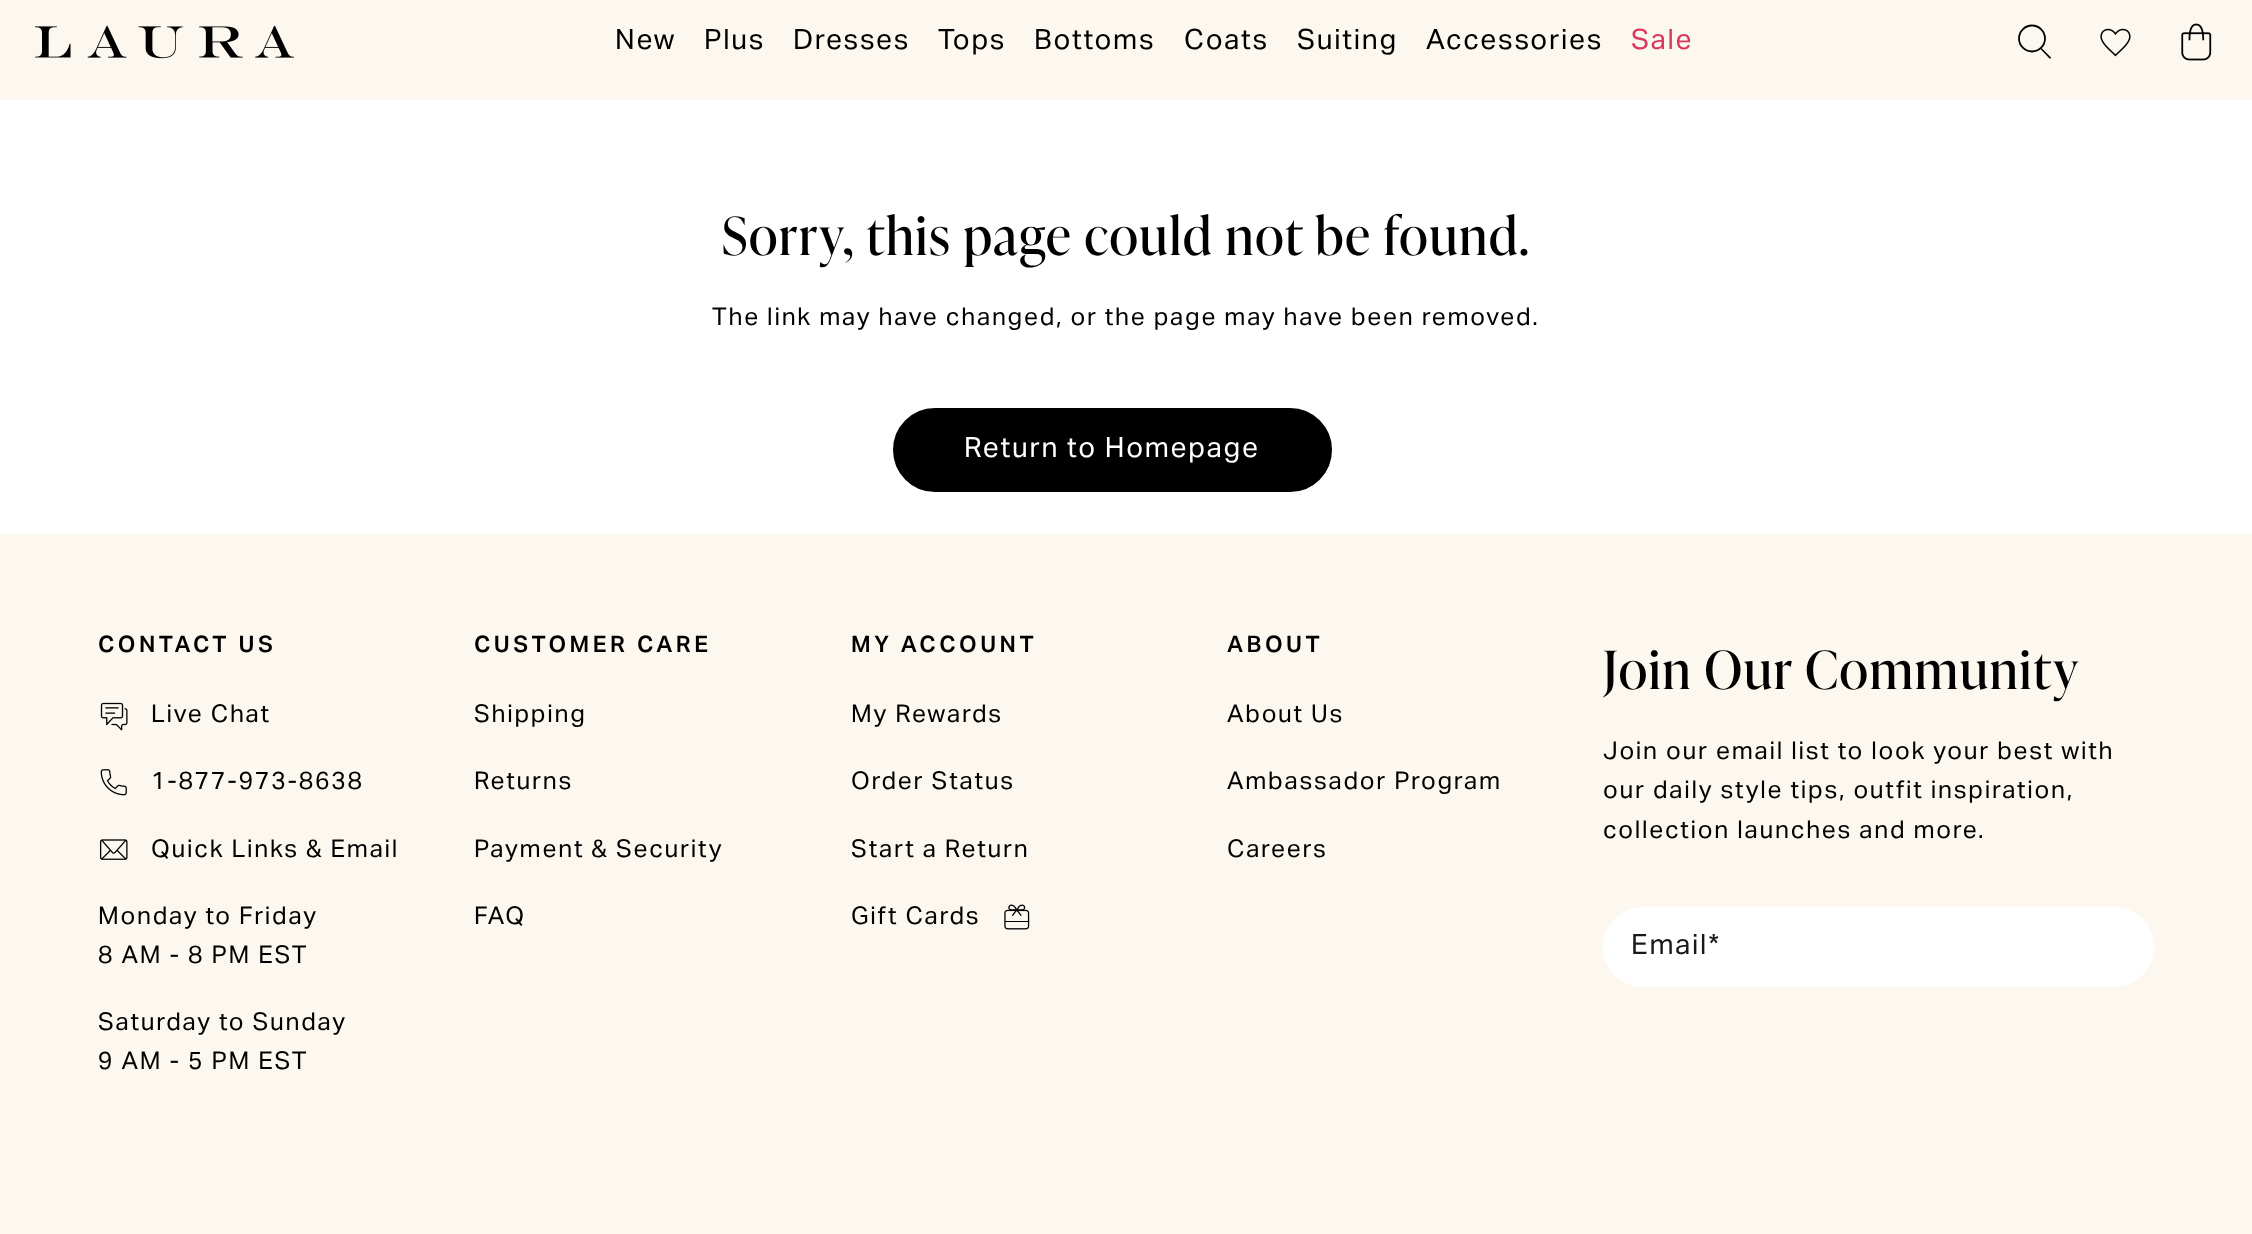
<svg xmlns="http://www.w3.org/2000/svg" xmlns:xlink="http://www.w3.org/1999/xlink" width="2252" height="1234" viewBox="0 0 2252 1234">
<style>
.cls-1{font:28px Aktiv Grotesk;letter-spacing:1.75px;fill:#000000}
.cls-2{font:28px Aktiv Grotesk;letter-spacing:1.75px;fill:#d9375d}
.cls-3{font:52.5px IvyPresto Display;letter-spacing:1.75px;fill:#000000}
.cls-4{font:24.5px Aktiv Grotesk;letter-spacing:1.75px;fill:#000000}
.cls-5{font:28px Aktiv Grotesk;letter-spacing:1.75px;fill:#ffffff}
.cls-6{font:600 22.75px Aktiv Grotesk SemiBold;letter-spacing:3.5px;fill:#000000}
.cls-7{font:28px Aktiv Grotesk;letter-spacing:1.75px;fill:#181818}
</style>
<rect width="100%" height="100%" fill="#ffffff"/>
<rect fill="#fcf8f0" x="0" y="0" width="2252" height="100"/>
<image xlink:href="image0.png" x="35" y="25" width="259" height="34"/>
<circle fill="none" stroke="#000000" stroke-width="1.8" cx="2032" cy="38.5" r="13"/>
<path fill="#000000" d="M2049.5 58.5C2050.5 59 2051.5 58 2050.5 57ZM2040 48.5L2049.5 58.5L2050.5 57L2041 47.5Z"/>
<image xlink:href="image1.png" x="2100" y="28" width="31" height="29"/>
<image xlink:href="image2.png" x="2181" y="23" width="31" height="38"/>
<rect fill="#000000" stroke="#000000" stroke-width="2" x="894" y="409" width="437" height="82" rx="41"/>
<rect fill="#fcf8f0" x="0" y="534" width="2252" height="700"/>
<image xlink:href="image3.png" x="100" y="702" width="28" height="29"/>
<image xlink:href="image4.png" x="100" y="769" width="27" height="27"/>
<image xlink:href="image5.png" x="99" y="839" width="29" height="21"/>
<image xlink:href="image6.png" x="1004" y="904" width="26" height="26"/>
<rect fill="#ffffff" x="1603" y="907" width="551" height="80" rx="40"/>
<text class="cls-1" x="615" y="49">New</text>
<text class="cls-1" x="704" y="49">Plus</text>
<text class="cls-1" x="793" y="49">Dresses</text>
<text class="cls-1" x="938" y="49">Tops</text>
<text class="cls-1" x="1034" y="49">Bottoms</text>
<text class="cls-1" x="1184" y="49">Coats</text>
<text class="cls-1" x="1297" y="49">Suiting</text>
<text class="cls-1" x="1426" y="49">Accessories</text>
<text class="cls-2" x="1631" y="49">Sale</text>
<text class="cls-3" x="722" y="255">Sorry, this page could not be found.</text>
<text class="cls-4" x="712" y="325">The link may have changed, or the page may have been removed.</text>
<text class="cls-5" x="964" y="457">Return to Homepage</text>
<text class="cls-6" x="98" y="652">CONTACT US</text>
<text class="cls-4" x="151" y="722">Live Chat</text>
<text class="cls-4" x="151" y="789">1-877-973-8638</text>
<text class="cls-4" x="151" y="857">Quick Links &amp; Email</text>
<text class="cls-4"><tspan x="98" y="924">Monday to Friday</tspan><tspan x="98" y="963">8 AM - 8 PM EST</tspan></text>
<text class="cls-4"><tspan x="98" y="1030">Saturday to Sunday</tspan><tspan x="98" y="1069">9 AM - 5 PM EST</tspan></text>
<text class="cls-6" x="474" y="652">CUSTOMER CARE</text>
<text class="cls-4" x="474" y="722">Shipping</text>
<text class="cls-4" x="474" y="789">Returns</text>
<text class="cls-4" x="474" y="857">Payment &amp; Security</text>
<text class="cls-4" x="474" y="924">FAQ</text>
<text class="cls-6" x="851" y="652">MY ACCOUNT</text>
<text class="cls-4" x="851" y="722">My Rewards</text>
<text class="cls-4" x="851" y="789">Order Status</text>
<text class="cls-4" x="851" y="857">Start a Return</text>
<text class="cls-4" x="851" y="924">Gift Cards</text>
<text class="cls-6" x="1227" y="652">ABOUT</text>
<text class="cls-4" x="1227" y="722">About Us</text>
<text class="cls-4" x="1227" y="789">Ambassador Program</text>
<text class="cls-4" x="1227" y="857">Careers</text>
<text class="cls-3" x="1603" y="689">Join Our Community</text>
<text class="cls-4"><tspan x="1603" y="759">Join our email list to look your best with</tspan><tspan x="1603" y="798">our daily style tips, outfit inspiration,</tspan><tspan x="1603" y="838">collection launches and more.</tspan></text>
<text class="cls-7" x="1631" y="954">Email*</text>
</svg>
